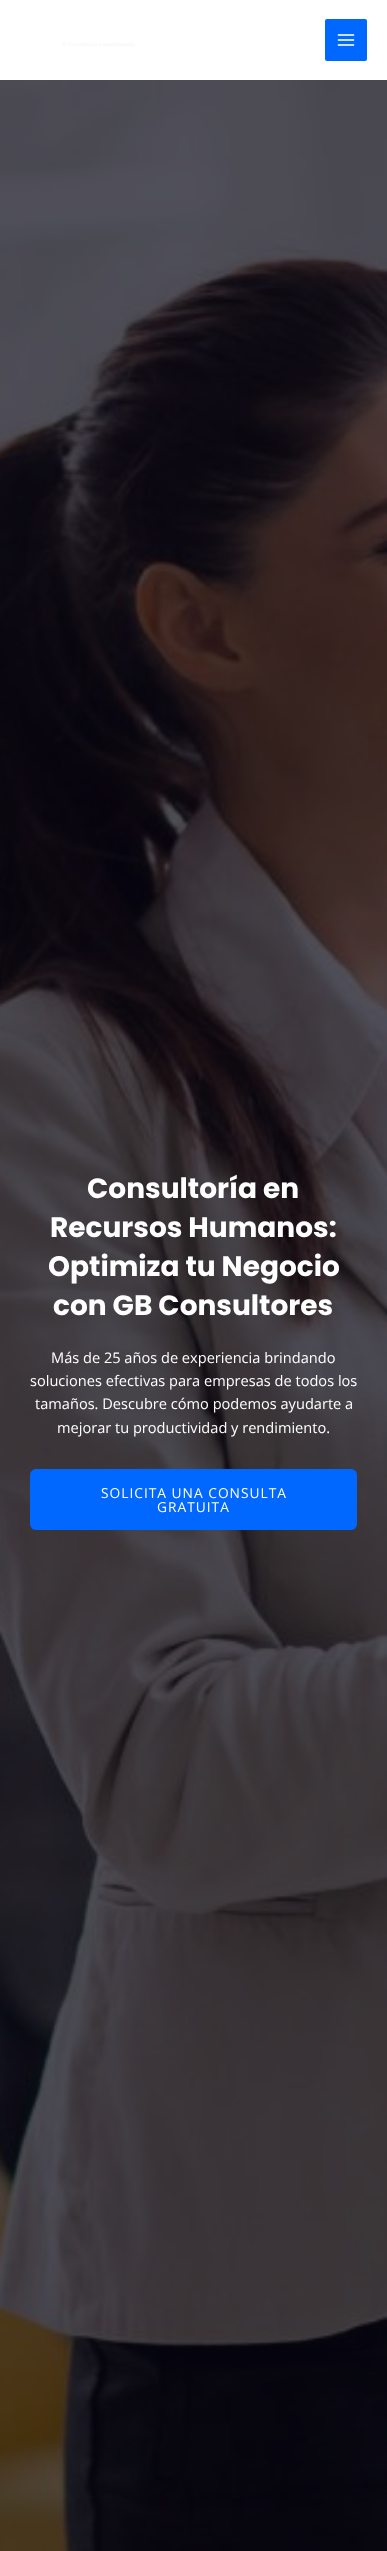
<svg xmlns="http://www.w3.org/2000/svg" xmlns:xlink="http://www.w3.org/1999/xlink" width="387" height="2551" viewBox="0 0 387 2551">
<style>
.cls-1{font:bold 28px Poppins;fill:#ffffff}
.cls-2{font:14.6px Open Sans;fill:#ffffff}
.cls-3{font:13.75px Open Sans;letter-spacing:1px;fill:#ffffff}
</style>
<rect width="100%" height="100%" fill="#ffffff"/>
<image xlink:href="image0.png" x="63" y="42" width="72" height="5"/>
<rect fill="#0067ff" x="325" y="19" width="42" height="42" rx="2"/>
<image xlink:href="image1.png" x="337" y="34" width="18" height="12"/>
<image xlink:href="image2.png" x="0" y="80" width="387" height="2471"/>
<rect fill="#0067ff" x="30" y="1469" width="327" height="61" rx="6"/>
<text class="cls-1" x="87" y="1198">Consultoría en</text>
<text class="cls-1" x="50" y="1237">Recursos Humanos:</text>
<text class="cls-1" x="48" y="1276">Optimiza tu Negocio</text>
<text class="cls-1" x="53" y="1315">con GB Consultores</text>
<text class="cls-2" x="51" y="1363">Más de 25 años de experiencia brindando</text>
<text class="cls-2" x="30" y="1386">soluciones efectivas para empresas de todos los</text>
<text class="cls-2" x="35" y="1409">tamaños. Descubre cómo podemos ayudarte a</text>
<text class="cls-2" x="57" y="1433">mejorar tu productividad y rendimiento.</text>
<text class="cls-3" x="101" y="1498">SOLICITA UNA CONSULTA</text>
<text class="cls-3" x="157" y="1512">GRATUITA</text>
</svg>
